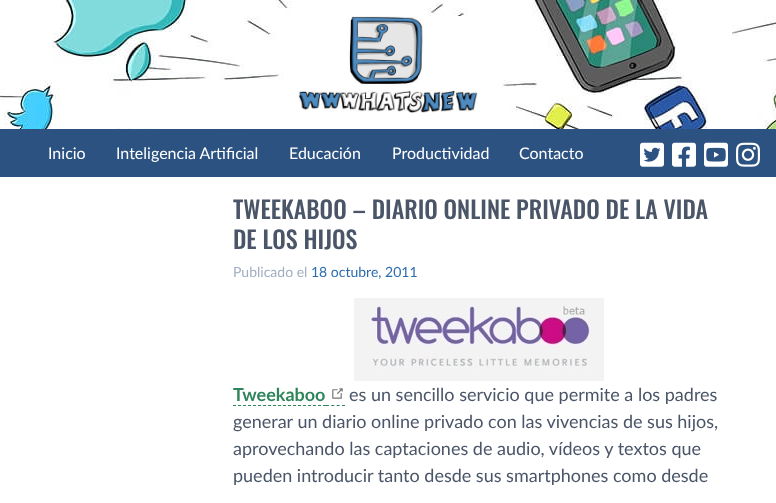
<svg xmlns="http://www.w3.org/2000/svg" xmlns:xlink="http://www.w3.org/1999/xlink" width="776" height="503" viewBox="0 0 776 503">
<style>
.cls-1{font:16px Lato;fill:#ffffff}
.cls-2{font:500 24px Oswald;fill:#4a5568}
.cls-3{font:14px Lato;fill:#a0aec0}
.cls-4{font:14px Lato;fill:#2b6cb0}
.cls-5{font:bold 18px Lato;fill:#2f855a}
.cls-6{font:18px Lato;fill:#4a5568}
</style>
<rect width="100%" height="100%" fill="#ffffff"/>
<image xlink:href="image0.png" x="0" y="0" width="776" height="129"/>
<image xlink:href="image1.png" x="298" y="16" width="180" height="97"/>
<rect fill="#2c5282" x="0" y="129" width="776" height="48"/>
<image xlink:href="image2.png" x="640" y="142" width="24" height="25"/>
<image xlink:href="image3.png" x="672" y="142" width="24" height="25"/>
<image xlink:href="image4.png" x="704" y="142" width="24" height="25"/>
<image xlink:href="image5.png" x="736" y="142" width="24" height="25"/>
<image xlink:href="image6.png" x="354" y="298" width="250" height="83"/>
<path fill="none" stroke="#2f855a" stroke-dasharray="3 2" d="M233 405.5H326"/>
<path fill="none" stroke="#2f855a" stroke-dasharray="3 2.33" d="M326 405.5H345"/>
<image xlink:href="image7.png" x="332" y="388" width="11" height="11"/>
<text class="cls-1" x="48" y="159">Inicio</text>
<text class="cls-1" x="116" y="159">Inteligencia Artificial</text>
<text class="cls-1" x="289" y="159">Educación</text>
<text class="cls-1" x="392" y="159">Productividad</text>
<text class="cls-1" x="519" y="159">Contacto</text>
<text class="cls-2"><tspan x="233" y="219">TWEEKABOO – DIARIO ONLINE PRIVADO DE LA VIDA</tspan><tspan x="233" y="249">DE LOS HIJOS</tspan></text>
<text class="cls-3" x="233" y="277">Publicado el</text>
<text class="cls-4" x="311" y="277">18 octubre, 2011</text>
<text class="cls-5" x="233" y="401">Tweekaboo</text>
<text class="cls-6" x="349" y="401">es un sencillo servicio que permite a los padres</text>
<text class="cls-6"><tspan x="233" y="428">generar un diario online privado con las vivencias de sus hijos,</tspan><tspan x="233" y="455">aprovechando las captaciones de audio, vídeos y textos que</tspan><tspan x="233" y="482">pueden introducir tanto desde sus smartphones como desde</tspan></text>
</svg>
